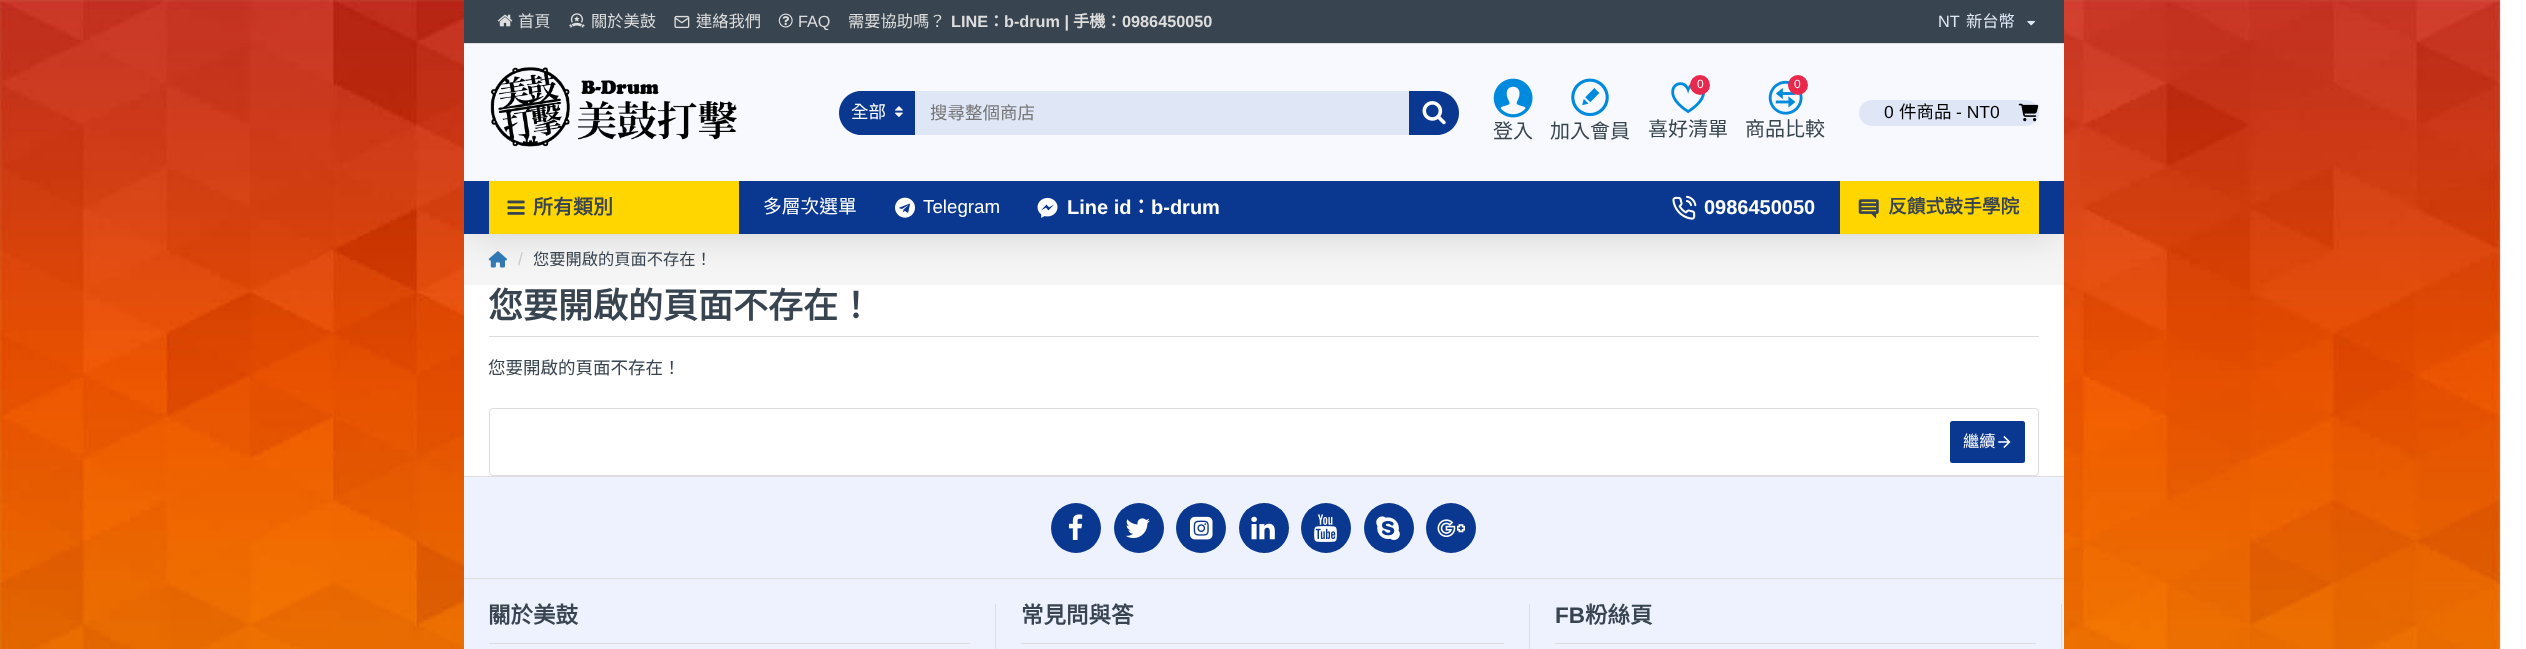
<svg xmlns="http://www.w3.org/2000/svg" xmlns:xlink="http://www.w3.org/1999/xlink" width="2526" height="649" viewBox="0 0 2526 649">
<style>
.cls-1{font:16.25px Noto Sans CJK TC;fill:#dddddd}
.cls-2{font:16.25px Liberation Sans;fill:#dddddd}
.cls-3{font:bold 16.25px Liberation Sans;fill:#dddddd}
.cls-4{font:bold 16.25px Noto Sans CJK TC;fill:#dddddd}
.cls-5{font:16.25px Liberation Sans;fill:#dfe7f7}
.cls-6{font:16.25px Noto Sans CJK TC;fill:#dfe7f7}
.cls-7{font:17.5px Noto Sans CJK TC;fill:#ffffff}
.cls-8{font:17.5px Noto Sans CJK TC;fill:#757575}
.cls-9{font:20px Noto Sans CJK TC;fill:#38444f}
.cls-10{font:12px Liberation Sans;fill:#ffffff}
.cls-11{font:17.5px Liberation Sans;fill:#000000}
.cls-12{font:17.5px Noto Sans CJK TC;fill:#000000}
.cls-13{font:bold 20px Noto Sans CJK TC;fill:#38444f}
.cls-14{font:18.75px Noto Sans CJK TC;fill:#ffffff}
.cls-15{font:18.75px Liberation Sans;fill:#ffffff}
.cls-16{font:bold 20px Liberation Sans;fill:#ffffff}
.cls-17{font:bold 20px Noto Sans CJK TC;fill:#ffffff}
.cls-18{font:bold 18.75px Noto Sans CJK TC;fill:#38444f}
.cls-19{font:17.5px Liberation Sans;fill:#cccccc}
.cls-20{font:16.25px Noto Sans CJK TC;fill:#38444f}
.cls-21{font:bold 35px Noto Sans CJK TC;fill:#38444f}
.cls-22{font:17.5px Noto Sans CJK TC;fill:#38444f}
.cls-23{font:16.25px Noto Sans CJK TC;fill:#ffffff}
.cls-24{font:bold 22.5px Noto Sans CJK TC;fill:#38444f}
.cls-25{font:bold 22.5px Liberation Sans;fill:#38444f}
</style>
<defs>
<clipPath id="clip1"><rect x="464" y="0" width="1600" height="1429"/></clipPath>
</defs>
<rect width="100%" height="100%" fill="#ffffff"/>
<image xlink:href="image0.png" x="0" y="0" width="2501" height="649"/>
<rect fill="#f5f5f5" x="464" y="234" width="1600" height="51"/>
<image xlink:href="image19.png" x="488" y="251" width="19" height="17"/>
<rect fill="#ffffff" x="464" y="285" width="1600" height="191"/>
<g clip-path="url(#clip1)">
<rect fill="#000000" fill-opacity="0.15" filter="blur(19px)" x="470" y="13" width="1588" height="221"/>
</g>
<rect fill="#f7f9ff" x="464" y="44" width="1600" height="137"/>
<rect fill="#38444f" x="464" y="0" width="1600" height="43"/>
<rect fill="#dddddd" x="464" y="43" width="1600" height="1"/>
<image xlink:href="image1.png" x="497" y="14" width="16" height="13"/>
<image xlink:href="image2.png" x="569" y="13" width="16" height="15"/>
<image xlink:href="image3.png" x="674" y="15" width="16" height="14"/>
<image xlink:href="image4.png" x="778" y="13" width="15" height="15"/>
<image xlink:href="image5.png" x="2027" y="20" width="9" height="6"/>
<image xlink:href="image6.png" x="490" y="67" width="247" height="80"/>
<path fill="#0a378f" d="M861 91H915V135H861C849 135 839 125 839 113C839 101 849 91 861 91Z"/>
<image xlink:href="image7.png" x="895" y="106" width="8" height="11"/>
<rect fill="#dfe7f7" x="915" y="91" width="494" height="44"/>
<path fill="#0a378f" d="M1409 91H1437C1449 91 1459 101 1459 113C1459 125 1449 135 1437 135H1409Z"/>
<image xlink:href="image8.png" x="1422" y="101" width="24" height="24"/>
<image xlink:href="image9.png" x="1493" y="78" width="40" height="40"/>
<image xlink:href="image10.png" x="1571" y="78" width="38" height="39"/>
<image xlink:href="image11.png" x="1671" y="82" width="34" height="32"/>
<circle fill="#e8284d" cx="1700" cy="85" r="10"/>
<image xlink:href="image12.png" x="1768" y="80" width="35" height="35"/>
<circle fill="#e8284d" cx="1798" cy="85" r="10"/>
<rect fill="#dfe7f7" x="1859" y="100" width="180" height="26" rx="13"/>
<image xlink:href="image13.png" x="2018" y="103" width="21" height="19"/>
<rect fill="#0a378f" x="464" y="181" width="1600" height="53"/>
<rect fill="#ffd600" x="489" y="181" width="250" height="53"/>
<image xlink:href="image14.png" x="507" y="200" width="18" height="15"/>
<image xlink:href="image15.png" x="895" y="197" width="20" height="21"/>
<image xlink:href="image16.png" x="1037" y="197" width="21" height="21"/>
<image xlink:href="image17.png" x="1672" y="195" width="25" height="25"/>
<rect fill="#ffd600" x="1840" y="181" width="199" height="53"/>
<image xlink:href="image18.png" x="1858" y="199" width="21" height="20"/>
<rect fill="#dddddd" x="489" y="336" width="1550" height="1"/>
<rect fill="none" stroke="#dddddd" x="489.5" y="408.5" width="1549" height="67" rx="3.5"/>
<rect fill="#0a378f" x="1950" y="421" width="75" height="42" rx="2.5"/>
<image xlink:href="image20.png" x="1998" y="436" width="13" height="12"/>
<rect fill="#edf2fe" x="464" y="477" width="1600" height="172"/>
<rect fill="#dddddd" x="464" y="476" width="1600" height="1"/>
<rect fill="#dddddd" x="464" y="578" width="1600" height="1"/>
<circle fill="#0a378f" cx="1076" cy="528" r="25"/>
<image xlink:href="image21.png" x="1068" y="514" width="15" height="26"/>
<circle fill="#0a378f" cx="1139" cy="528" r="25"/>
<image xlink:href="image22.png" x="1125" y="518" width="25" height="20"/>
<circle fill="#0a378f" cx="1201" cy="528" r="25"/>
<image xlink:href="image23.png" x="1190" y="516" width="23" height="24"/>
<circle fill="#0a378f" cx="1264" cy="528" r="25"/>
<image xlink:href="image24.png" x="1251" y="516" width="24" height="24"/>
<circle fill="#0a378f" cx="1326" cy="528" r="25"/>
<image xlink:href="image25.png" x="1314" y="514" width="23" height="28"/>
<circle fill="#0a378f" cx="1389" cy="528" r="25"/>
<image xlink:href="image26.png" x="1376" y="516" width="24" height="24"/>
<circle fill="#0a378f" cx="1451" cy="528" r="25"/>
<image xlink:href="image27.png" x="1437" y="519" width="28" height="19"/>
<rect fill="#dddddd" x="995" y="604" width="1" height="45"/>
<rect fill="#dddddd" x="489" y="643" width="481" height="1"/>
<rect fill="#dddddd" x="1529" y="604" width="1" height="45"/>
<rect fill="#dddddd" x="1021" y="643" width="483" height="1"/>
<rect fill="#dddddd" x="2061" y="604" width="1" height="45"/>
<rect fill="#dddddd" x="1555" y="643" width="481" height="1"/>
<text class="cls-1" x="518" y="27">首頁</text>
<text class="cls-1" x="591" y="27">關於美鼓</text>
<text class="cls-1" x="696" y="27">連絡我們</text>
<text class="cls-2" x="798" y="27">FAQ</text>
<text class="cls-1" x="848" y="27">需要協助嗎？</text>
<text class="cls-3" x="951" y="27">LINE</text>
<text class="cls-4" x="988" y="27">：</text>
<text class="cls-3" x="1004" y="27">b-drum |</text>
<text class="cls-4" x="1073" y="27">手機：</text>
<text class="cls-3" x="1122" y="27">0986450050</text>
<text class="cls-5" x="1938" y="27">NT</text>
<text class="cls-6" x="1966" y="27">新台幣</text>
<text class="cls-7" x="851" y="118">全部</text>
<text class="cls-8" x="930" y="119">搜尋整個商店</text>
<text class="cls-9" x="1493" y="138">登入</text>
<text class="cls-9" x="1550" y="138">加入會員</text>
<text class="cls-10" x="1697" y="88">0</text>
<text class="cls-9" x="1648" y="136">喜好清單</text>
<text class="cls-10" x="1794" y="88">0</text>
<text class="cls-9" x="1745" y="136">商品比較</text>
<text class="cls-11" x="1884" y="118">0</text>
<text class="cls-12" x="1899" y="118">件商品</text>
<text class="cls-11" x="1956" y="118">- NT0</text>
<text class="cls-13" x="533" y="214">所有類別</text>
<text class="cls-14" x="763" y="213">多層次選單</text>
<text class="cls-15" x="923" y="213">Telegram</text>
<text class="cls-16" x="1067" y="214">Line id</text>
<text class="cls-17" x="1131" y="214">：</text>
<text class="cls-16" x="1151" y="214">b-drum</text>
<text class="cls-16" x="1704" y="214">0986450050</text>
<text class="cls-18" x="1888" y="213">反饋式鼓手學院</text>
<text class="cls-19" x="518" y="265">/</text>
<text class="cls-20" x="533" y="265">您要開啟的頁面不存在！</text>
<text class="cls-21" x="488" y="318">您要開啟的頁面不存在！</text>
<text class="cls-22" x="488" y="374">您要開啟的頁面不存在！</text>
<text class="cls-23" x="1963" y="447">繼續</text>
<text class="cls-24" x="488" y="623">關於美鼓</text>
<text class="cls-24" x="1021" y="623">常見問與答</text>
<text class="cls-25" x="1555" y="623">FB</text>
<text class="cls-24" x="1585" y="623">粉絲頁</text>
</svg>
